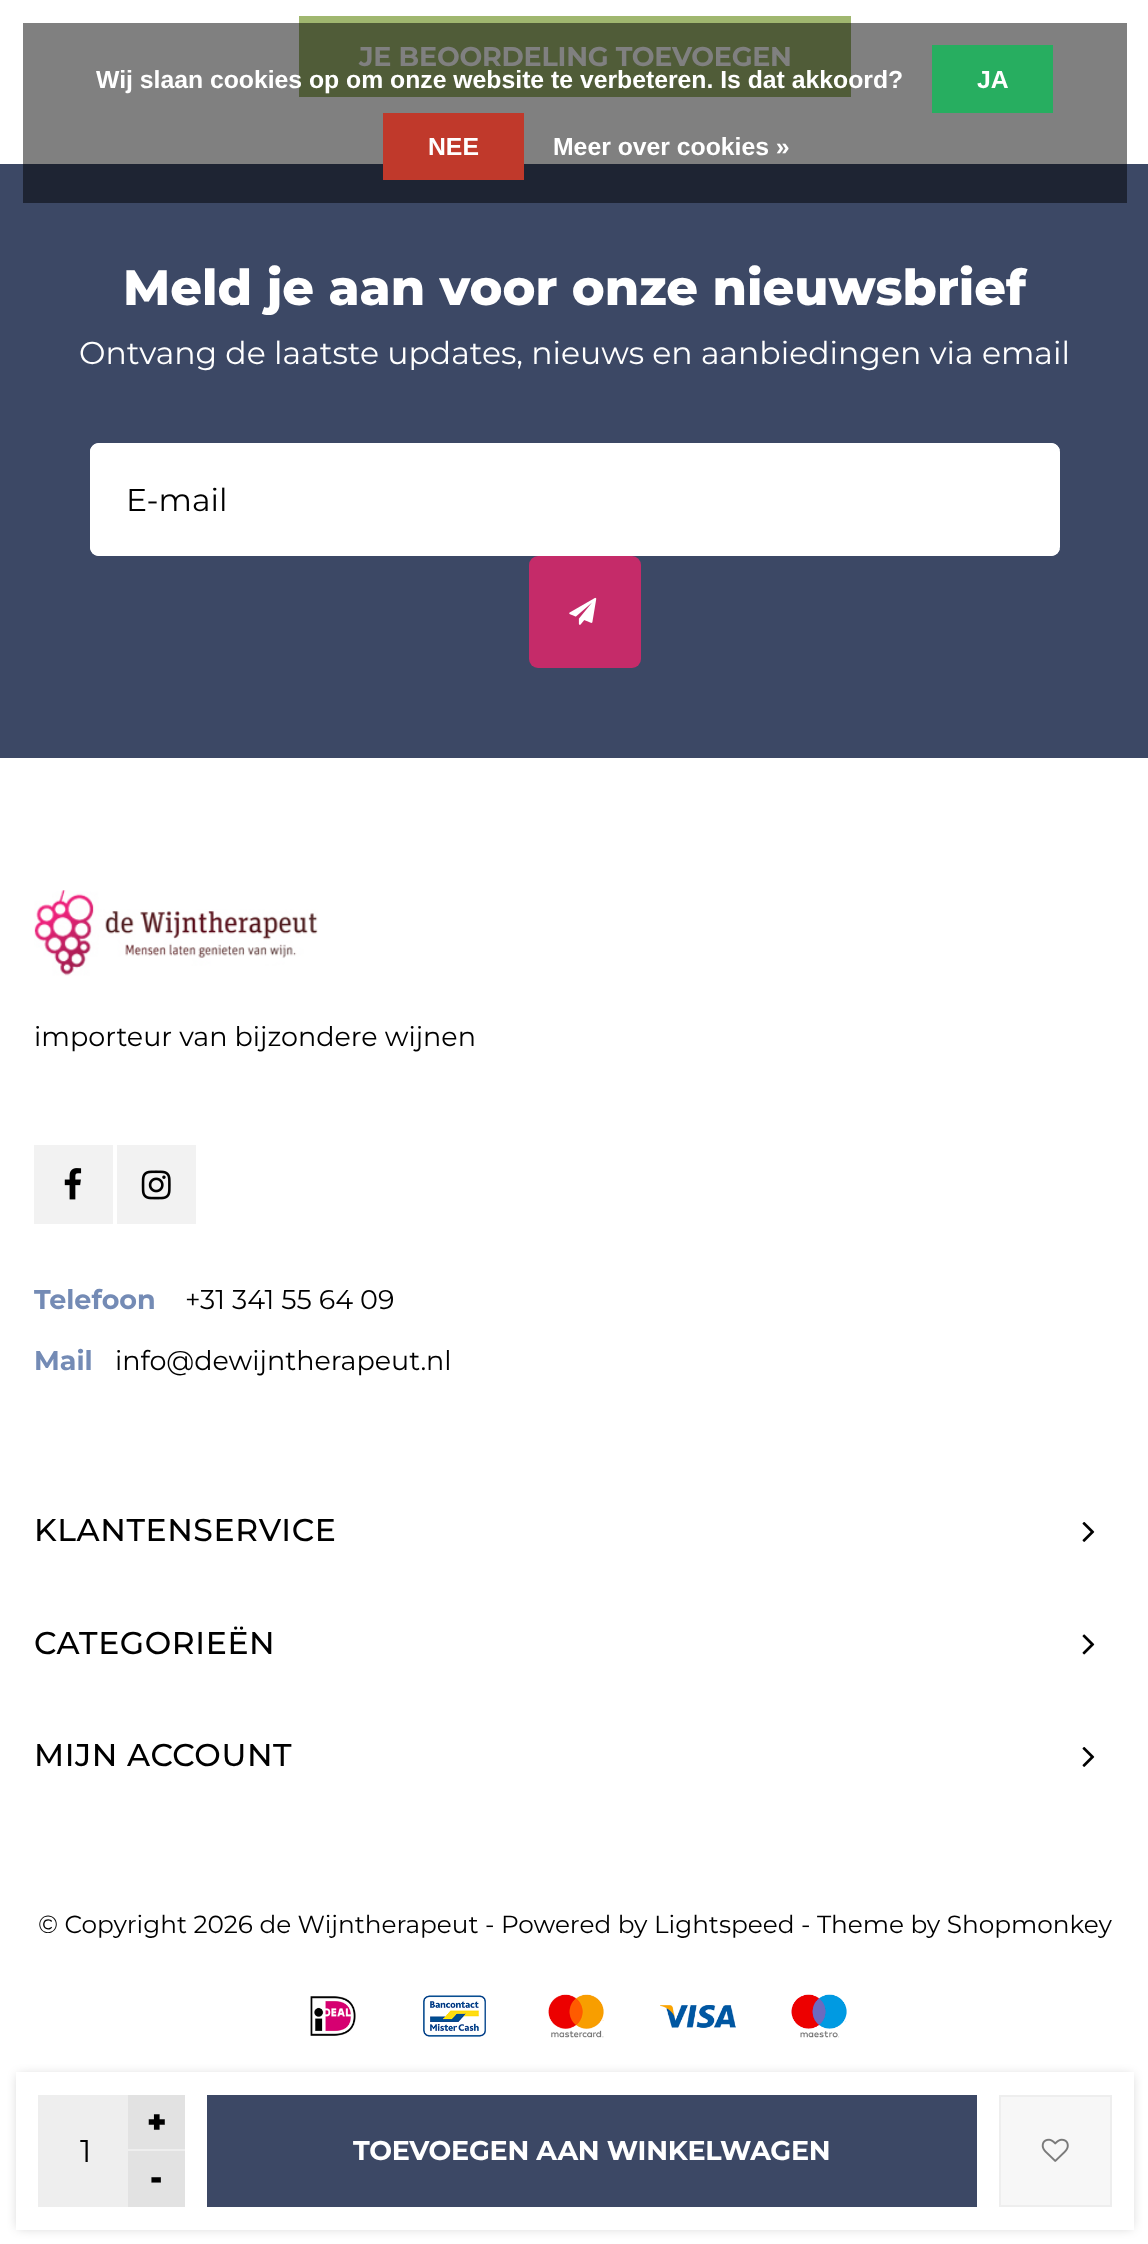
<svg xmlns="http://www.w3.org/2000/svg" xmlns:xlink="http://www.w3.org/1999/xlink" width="1148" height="2244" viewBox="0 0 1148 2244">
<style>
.cls-1{font:bold 27px Montserrat;letter-spacing:-0.25px;fill:#808080}
.cls-2{font:31.5px Montserrat;fill:#000000}
.cls-3{font:900 31.5px Montserrat;fill:#000000}
.cls-4{font:bold 27px Montserrat;letter-spacing:-0.25px;fill:#ffffff}
.cls-5{font:bold 24.75px Liberation Sans;fill:#ffffff}
.cls-6{font:800 49.5px Montserrat;fill:#ffffff}
.cls-7{font:31.5px Montserrat;fill:#ffffff}
.cls-8{font:27px Montserrat;fill:#000000}
.cls-9{font:bold 27px Montserrat;fill:#748bb5}
.cls-10{font:500 31.5px Montserrat;letter-spacing:0.6px;fill:#000000}
.cls-11{font:24.75px Montserrat;fill:#000000}
</style>
<rect width="100%" height="100%" fill="#ffffff"/>
<rect fill="#808080" x="23" y="23" width="1104" height="141"/>
<rect fill="#a0b76f" x="299" y="16" width="552" height="7"/>
<rect fill="#505c38" x="299" y="23" width="552" height="74"/>
<rect fill="#000000" fill-opacity="0.2" filter="blur(5.5px)" x="18" y="2075" width="1114" height="153"/>
<rect fill="#ffffff" x="16" y="2072" width="1118" height="158"/>
<rect fill="#eeeeee" x="38" y="2095" width="90" height="112"/>
<rect fill="#e2e2e2" x="128" y="2095" width="57" height="54"/>
<rect fill="#eeeeee" x="128" y="2149" width="57" height="2"/>
<rect fill="#e2e2e2" x="128" y="2151" width="57" height="56"/>
<rect fill="#3c4865" x="207" y="2095" width="770" height="112"/>
<rect fill="#f7f7f7" stroke="#eeeeee" stroke-width="2" x="1000" y="2096" width="111" height="110"/>
<image xlink:href="image0.png" x="1041" y="2138" width="28" height="24"/>
<rect fill="#27ae60" x="932" y="45" width="121" height="68"/>
<rect fill="#3c4865" x="0" y="164" width="1148" height="594"/>
<rect fill="#1e2433" x="23" y="164" width="1104" height="39"/>
<rect fill="#c0392b" x="383" y="113" width="141" height="67"/>
<rect fill="#ffffff" x="90" y="443" width="970" height="113" rx="9"/>
<path fill="#ffffff" fill-rule="evenodd" d="M99 443H1051C1056 443 1060 447 1060 452V547C1060 552 1056 556 1051 556H99C94 556 90 552 90 547V452C90 447 94 443 99 443ZM99 446H1051C1056 446 1060 449 1060 452V547C1060 550 1056 554 1051 554H99C95 554 92 550 92 547V452C92 449 95 446 99 446Z"/>
<rect fill="#c52b69" x="529" y="556" width="112" height="112" rx="9"/>
<image xlink:href="image1.png" x="569" y="597" width="28" height="28"/>
<image xlink:href="image2.png" x="34" y="890" width="284" height="86"/>
<rect fill="#f2f2f2" x="34" y="1145" width="79" height="79"/>
<image xlink:href="image3.png" x="64" y="1168" width="18" height="32"/>
<rect fill="#f2f2f2" x="117" y="1145" width="79" height="79"/>
<image xlink:href="image4.png" x="141" y="1170" width="30" height="30"/>
<image xlink:href="image5.png" x="1082" y="1522" width="13" height="20"/>
<image xlink:href="image6.png" x="1082" y="1634" width="13" height="21"/>
<image xlink:href="image5.png" x="1082" y="1747" width="13" height="20"/>
<image xlink:href="image7.png" x="310" y="1996" width="46" height="40"/>
<image xlink:href="image8.png" x="423" y="1995" width="63" height="42"/>
<image xlink:href="image9.png" x="548" y="1994" width="56" height="44"/>
<image xlink:href="image10.png" x="660" y="2005" width="76" height="23"/>
<image xlink:href="image11.png" x="791" y="1994" width="56" height="44"/>
<text class="cls-1" x="359" y="66">JE BEOORDELING TOEVOEGEN</text>
<text class="cls-2" x="80" y="2162">1</text>
<text class="cls-3" x="147" y="2133">+</text>
<text class="cls-3" x="150" y="2189">-</text>
<text class="cls-4" x="353" y="2160">TOEVOEGEN AAN WINKELWAGEN</text>
<text class="cls-5" x="96" y="88">Wij slaan cookies op om onze website te verbeteren. Is dat akkoord?</text>
<text class="cls-5" x="977" y="88">JA</text>
<text class="cls-5" x="428" y="155">NEE</text>
<text class="cls-5" x="553" y="155">Meer over cookies »</text>
<text class="cls-6" x="123" y="305">Meld je aan voor onze nieuwsbrief</text>
<text class="cls-7" x="79" y="364">Ontvang de laatste updates, nieuws en aanbiedingen via email</text>
<text class="cls-2" x="126" y="511">E-mail</text>
<text class="cls-8" x="34" y="1046">importeur van bijzondere wijnen</text>
<text class="cls-9" x="34" y="1309">Telefoon</text>
<text class="cls-8" x="185" y="1309">+31 341 55 64 09</text>
<text class="cls-9" x="34" y="1370">Mail</text>
<text class="cls-8" x="115" y="1370">info@dewijntherapeut.nl</text>
<text class="cls-10" x="34" y="1541">KLANTENSERVICE</text>
<text class="cls-10" x="34" y="1654">CATEGORIEËN</text>
<text class="cls-10" x="34" y="1766">MIJN ACCOUNT</text>
<text class="cls-11" x="38" y="1933">© Copyright 2026 de Wijntherapeut - Powered by Lightspeed - Theme by Shopmonkey</text>
</svg>
